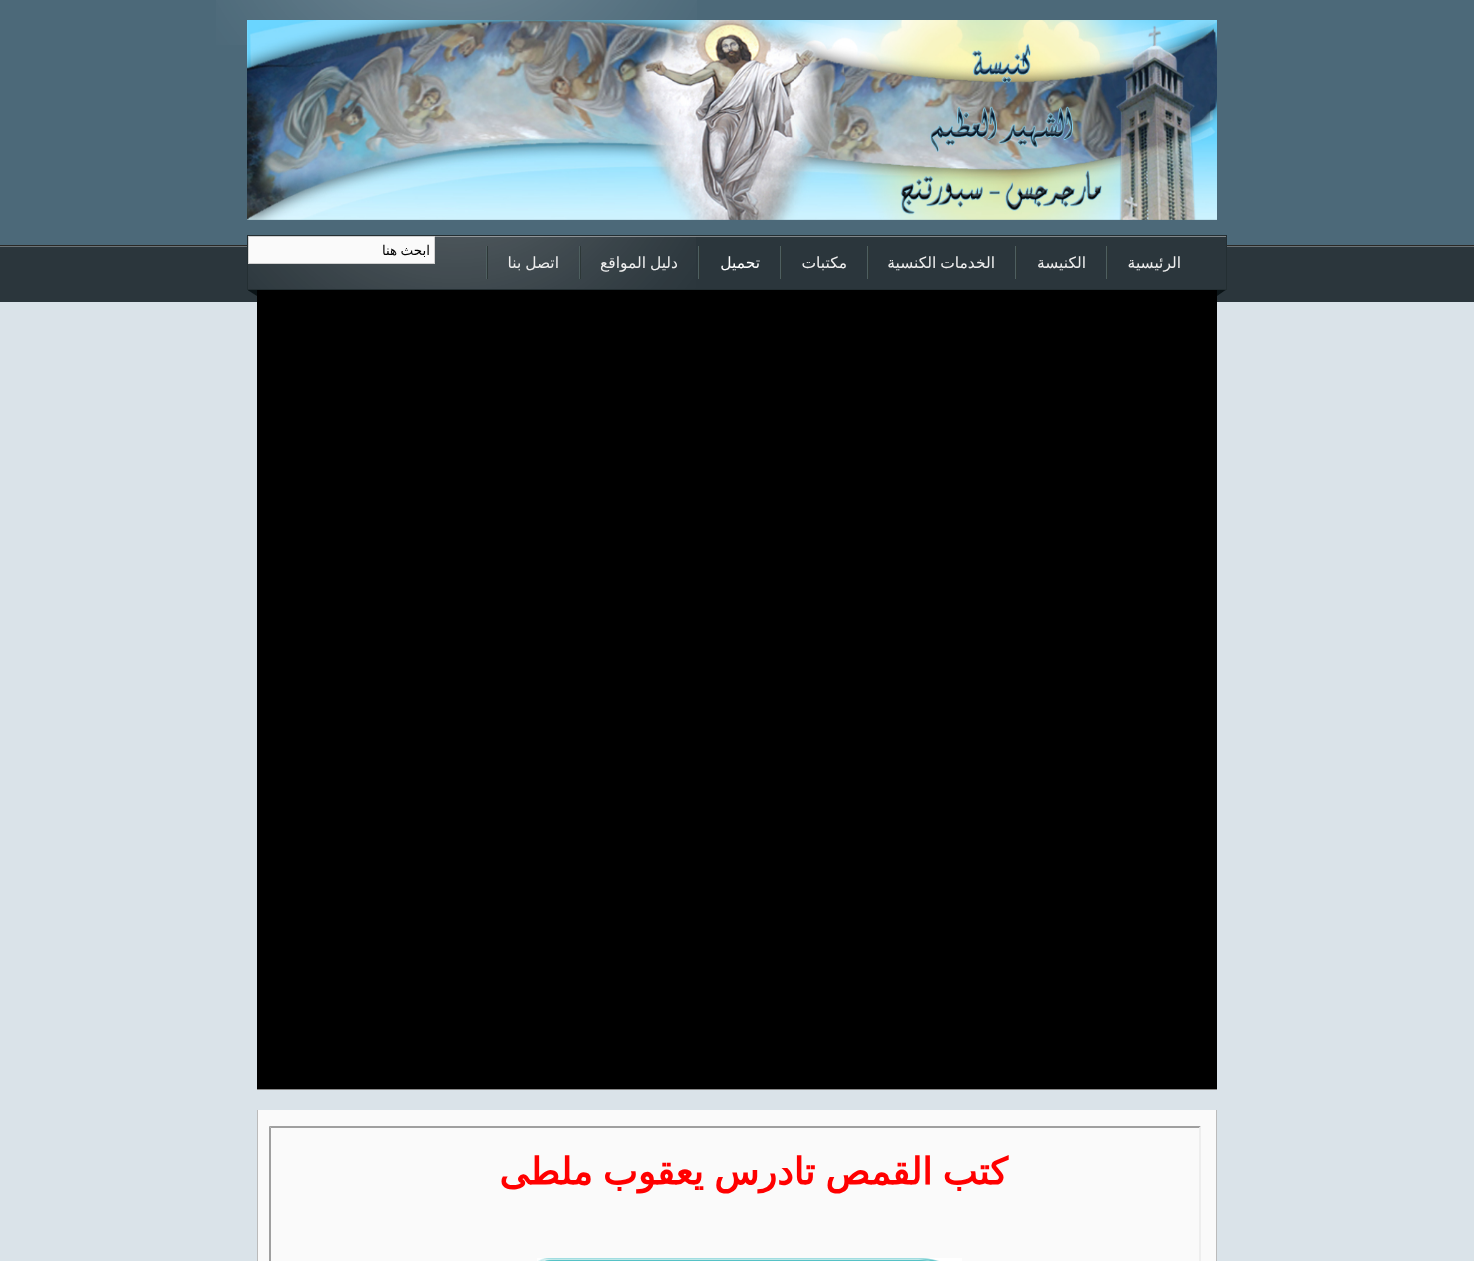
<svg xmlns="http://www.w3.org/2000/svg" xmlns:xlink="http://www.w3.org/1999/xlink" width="1474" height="1261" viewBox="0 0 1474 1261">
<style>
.cls-1{font:13.5px DejaVu Sans;direction:rtl;fill:#000000}
.cls-2{font:15.5px DejaVu Sans;direction:rtl;fill:#eeeeee}
.cls-3{font:15.5px DejaVu Sans;direction:rtl;fill:#ffffff}
</style>
<rect width="100%" height="100%" fill="#dae3e9"/>
<rect fill="#4c6979" x="0" y="0" width="1474" height="245"/>
<image xlink:href="image0.png" x="216" y="0" width="481" height="45"/>
<image xlink:href="image1.png" x="247" y="20" width="970" height="200"/>
<image xlink:href="image2.png" x="0" y="245" width="1474" height="57"/>
<rect fill="#2b363c" x="248" y="237" width="978" height="10"/>
<rect fill="#80868a" x="435" y="236" width="792" height="1"/>
<rect fill="none" stroke="#242f33" x="247.5" y="235.5" width="979" height="54"/>
<image xlink:href="image3.png" x="248" y="236" width="448" height="53"/>
<rect fill="#fafafa" stroke="#d0d0d0" x="248.5" y="236.5" width="186" height="27"/>
<rect fill="#4e5f60" x="1106" y="246" width="1" height="33"/>
<rect fill="#2d3737" x="1107" y="246" width="1" height="33"/>
<rect fill="#4e5f60" x="1015" y="246" width="1" height="33"/>
<rect fill="#2d3737" x="1016" y="246" width="1" height="33"/>
<rect fill="#4e5f60" x="867" y="246" width="1" height="33"/>
<rect fill="#2d3737" x="868" y="246" width="1" height="33"/>
<rect fill="#4e5f60" x="780" y="246" width="1" height="33"/>
<rect fill="#2d3737" x="781" y="246" width="1" height="33"/>
<rect fill="#4e5f60" x="698" y="246" width="1" height="33"/>
<rect fill="#2d3737" x="699" y="246" width="1" height="33"/>
<rect fill="#4e5f60" x="579" y="246" width="1" height="33"/>
<rect fill="#2d3737" x="580" y="246" width="1" height="33"/>
<rect fill="#4e5f60" x="486" y="246" width="1" height="33"/>
<rect fill="#2d3737" x="487" y="246" width="1" height="33"/>
<image xlink:href="image4.png" x="1217" y="290" width="9" height="6"/>
<image xlink:href="image5.png" x="248" y="290" width="9" height="6"/>
<rect fill="#888888" x="257" y="1089" width="960" height="1"/>
<rect fill="#000000" x="257" y="290" width="960" height="799"/>
<rect fill="#fafafa" x="258" y="1110" width="958" height="151"/>
<rect fill="#bbbbbb" x="1216" y="1110" width="1" height="151"/>
<rect fill="#bbbbbb" x="257" y="1110" width="1" height="151"/>
<path fill="#9f9f9f" d="M269 1126H1201L1199 1128H271Z"/>
<path fill="#eeeeee" d="M1201 1126V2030L1199 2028V1128Z"/>
<image xlink:href="image6.png" x="501" y="1155" width="508" height="106"/>
<path fill="#9f9f9f" d="M269 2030V1126L271 1128V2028Z"/>
<text class="cls-1" x="430" y="255" word-spacing="-1">ابحث هنا</text>
<text class="cls-2" x="1181" y="268">الرئيسية</text>
<text class="cls-2" x="1086" y="268">الكنيسة</text>
<text class="cls-2" x="995" y="268" word-spacing="-1">الخدمات الكنسية</text>
<text class="cls-2" x="847" y="268">مكتبات</text>
<text class="cls-3" x="760" y="268">تحميل</text>
<text class="cls-2" x="678" y="268" word-spacing="-1">دليل المواقع</text>
<text class="cls-2" x="559" y="268" word-spacing="-1">اتصل بنا</text>
</svg>
